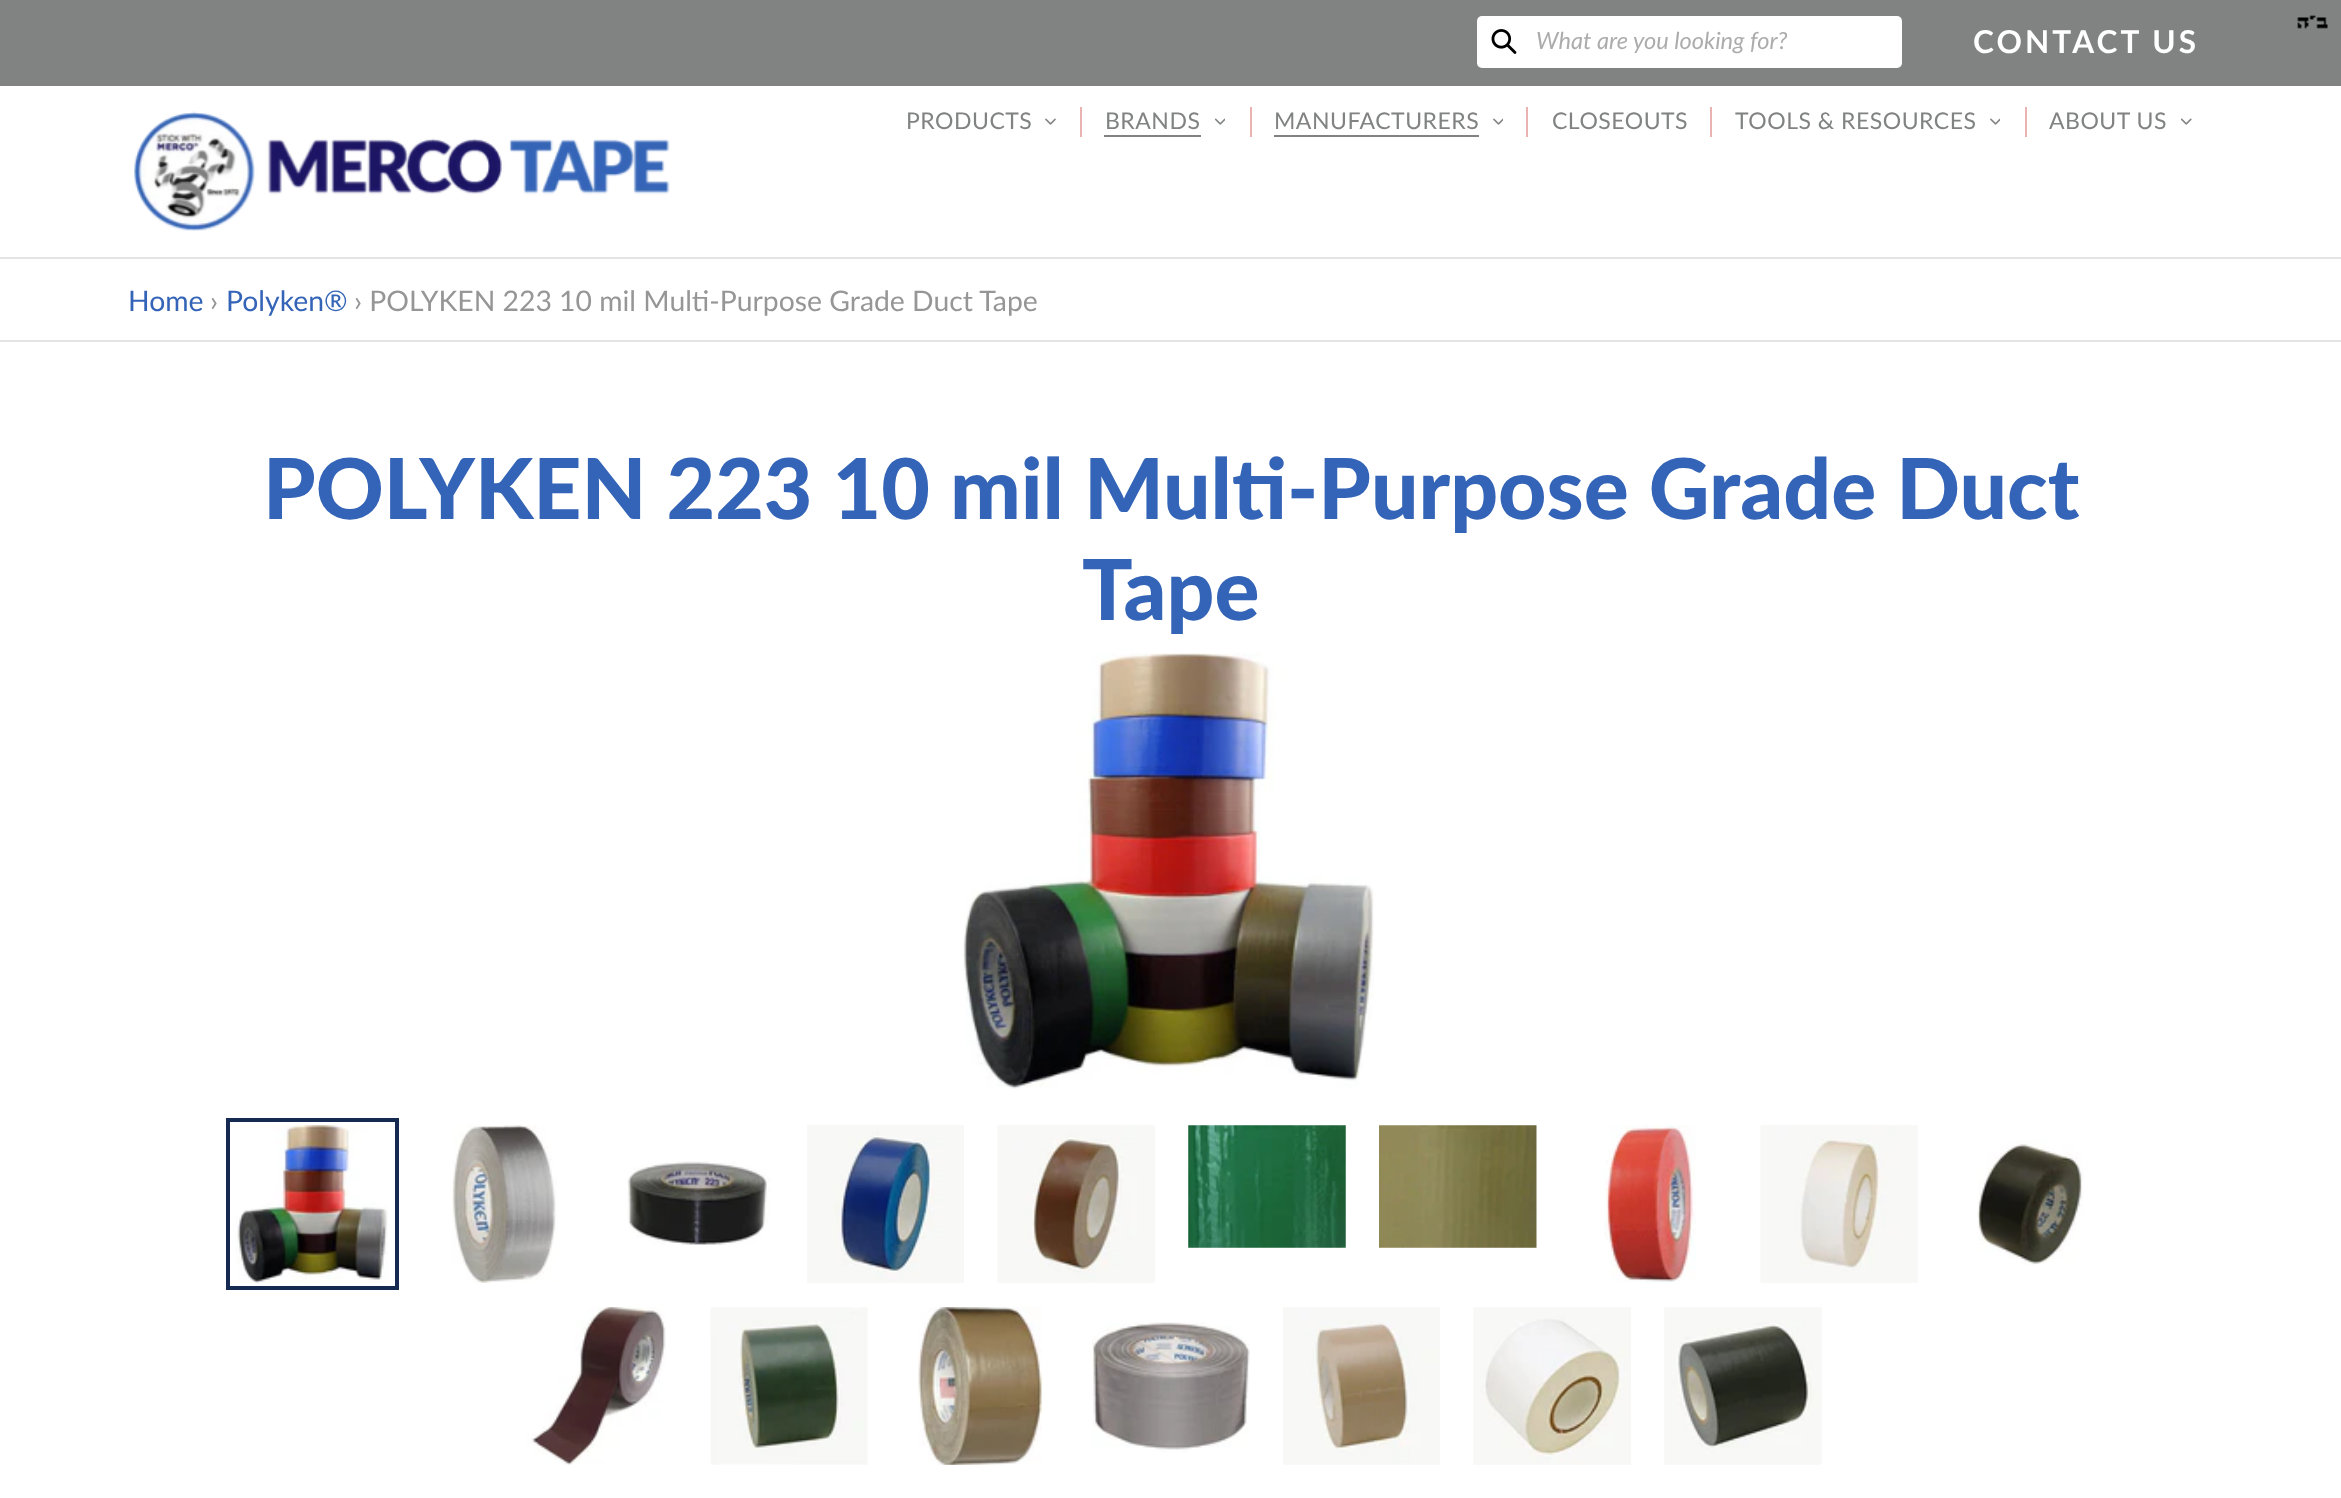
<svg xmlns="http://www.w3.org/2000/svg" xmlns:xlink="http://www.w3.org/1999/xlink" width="2341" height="1498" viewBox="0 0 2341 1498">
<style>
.cls-1{font:italic 23.6px Lato;fill:#acacac}
.cls-2{font:bold 31.5px Lato;letter-spacing:3.1px;fill:#ffffff}
.cls-3{font:23px Lato;letter-spacing:0.5px;fill:#818282}
.cls-4{font:28.35px Lato;fill:#3464b7}
.cls-5{font:28.35px Lato;fill:#969696}
.cls-6{font:900 84px Lato;fill:#3464b7}
</style>
<rect width="100%" height="100%" fill="#ffffff"/>
<rect fill="#818282" x="0" y="0" width="2341" height="86"/>
<image xlink:href="image0.png" x="2297" y="15" width="31" height="14"/>
<rect fill="#ffffff" x="1477" y="16" width="425" height="52" rx="5"/>
<image xlink:href="image1.png" x="1491" y="29" width="26" height="25"/>
<rect fill="#e4e4e4" x="0" y="257" width="2341" height="2"/>
<image xlink:href="image2.png" x="134" y="111" width="536" height="120"/>
<image xlink:href="image3.png" x="1045" y="118" width="11" height="7"/>
<rect fill="#ebb2b2" x="1080" y="107" width="2" height="30"/>
<rect fill="#818282" x="1104" y="135" width="97" height="2"/>
<image xlink:href="image4.png" x="1215" y="118" width="10" height="7"/>
<rect fill="#ebb2b2" x="1250" y="107" width="2" height="30"/>
<rect fill="#818282" x="1274" y="135" width="205" height="2"/>
<image xlink:href="image5.png" x="1493" y="118" width="10" height="7"/>
<rect fill="#ebb2b2" x="1526" y="107" width="2" height="30"/>
<rect fill="#ebb2b2" x="1710" y="107" width="2" height="30"/>
<image xlink:href="image5.png" x="1990" y="118" width="10" height="7"/>
<rect fill="#ebb2b2" x="2025" y="107" width="2" height="30"/>
<image xlink:href="image6.png" x="2181" y="118" width="11" height="7"/>
<rect fill="#e4e4e4" x="0" y="340" width="2341" height="2"/>
<image xlink:href="image7.png" x="962" y="653" width="412" height="436"/>
<rect fill="none" stroke="#162950" stroke-width="4" x="228" y="1120" width="169" height="168"/>
<image xlink:href="image8.png" x="235" y="1125" width="153" height="158"/>
<image xlink:href="image9.png" x="452" y="1125" width="106" height="158"/>
<image xlink:href="image10.png" x="627" y="1161" width="143" height="84"/>
<image xlink:href="image11.png" x="807" y="1125" width="157" height="158"/>
<image xlink:href="image12.png" x="997" y="1125" width="158" height="158"/>
<image xlink:href="image13.png" x="1188" y="1125" width="158" height="123"/>
<image xlink:href="image14.png" x="1379" y="1125" width="158" height="123"/>
<image xlink:href="image15.png" x="1604" y="1125" width="92" height="158"/>
<image xlink:href="image16.png" x="1760" y="1125" width="158" height="158"/>
<image xlink:href="image17.png" x="1977" y="1140" width="107" height="125"/>
<image xlink:href="image18.png" x="527" y="1307" width="139" height="158"/>
<image xlink:href="image19.png" x="710" y="1307" width="158" height="158"/>
<image xlink:href="image20.png" x="918" y="1307" width="125" height="158"/>
<image xlink:href="image21.png" x="1092" y="1322" width="158" height="130"/>
<image xlink:href="image22.png" x="1283" y="1307" width="157" height="158"/>
<image xlink:href="image23.png" x="1473" y="1307" width="158" height="158"/>
<image xlink:href="image24.png" x="1664" y="1307" width="158" height="158"/>
<text class="cls-1" x="1536" y="49">What are you looking for?</text>
<text class="cls-2" x="1973" y="53">CONTACT US</text>
<text class="cls-3" x="906" y="129">PRODUCTS</text>
<text class="cls-3" x="1105" y="129">BRANDS</text>
<text class="cls-3" x="1274" y="129">MANUFACTURERS</text>
<text class="cls-3" x="1552" y="129">CLOSEOUTS</text>
<text class="cls-3" x="1735" y="129">TOOLS &amp; RESOURCES</text>
<text class="cls-3" x="2049" y="129">ABOUT US</text>
<text class="cls-4" x="128" y="311">Home</text>
<text class="cls-5" x="210" y="311">›</text>
<text class="cls-4" x="226" y="311">Polyken®</text>
<text class="cls-5" x="354" y="311">› POLYKEN 223 10 mil Multi-Purpose Grade Duct Tape</text>
<text class="cls-6" x="263" y="519">POLYKEN 223 10 mil Multi-Purpose Grade Duct</text>
<text class="cls-6" x="1082" y="620">Tape</text>
</svg>
